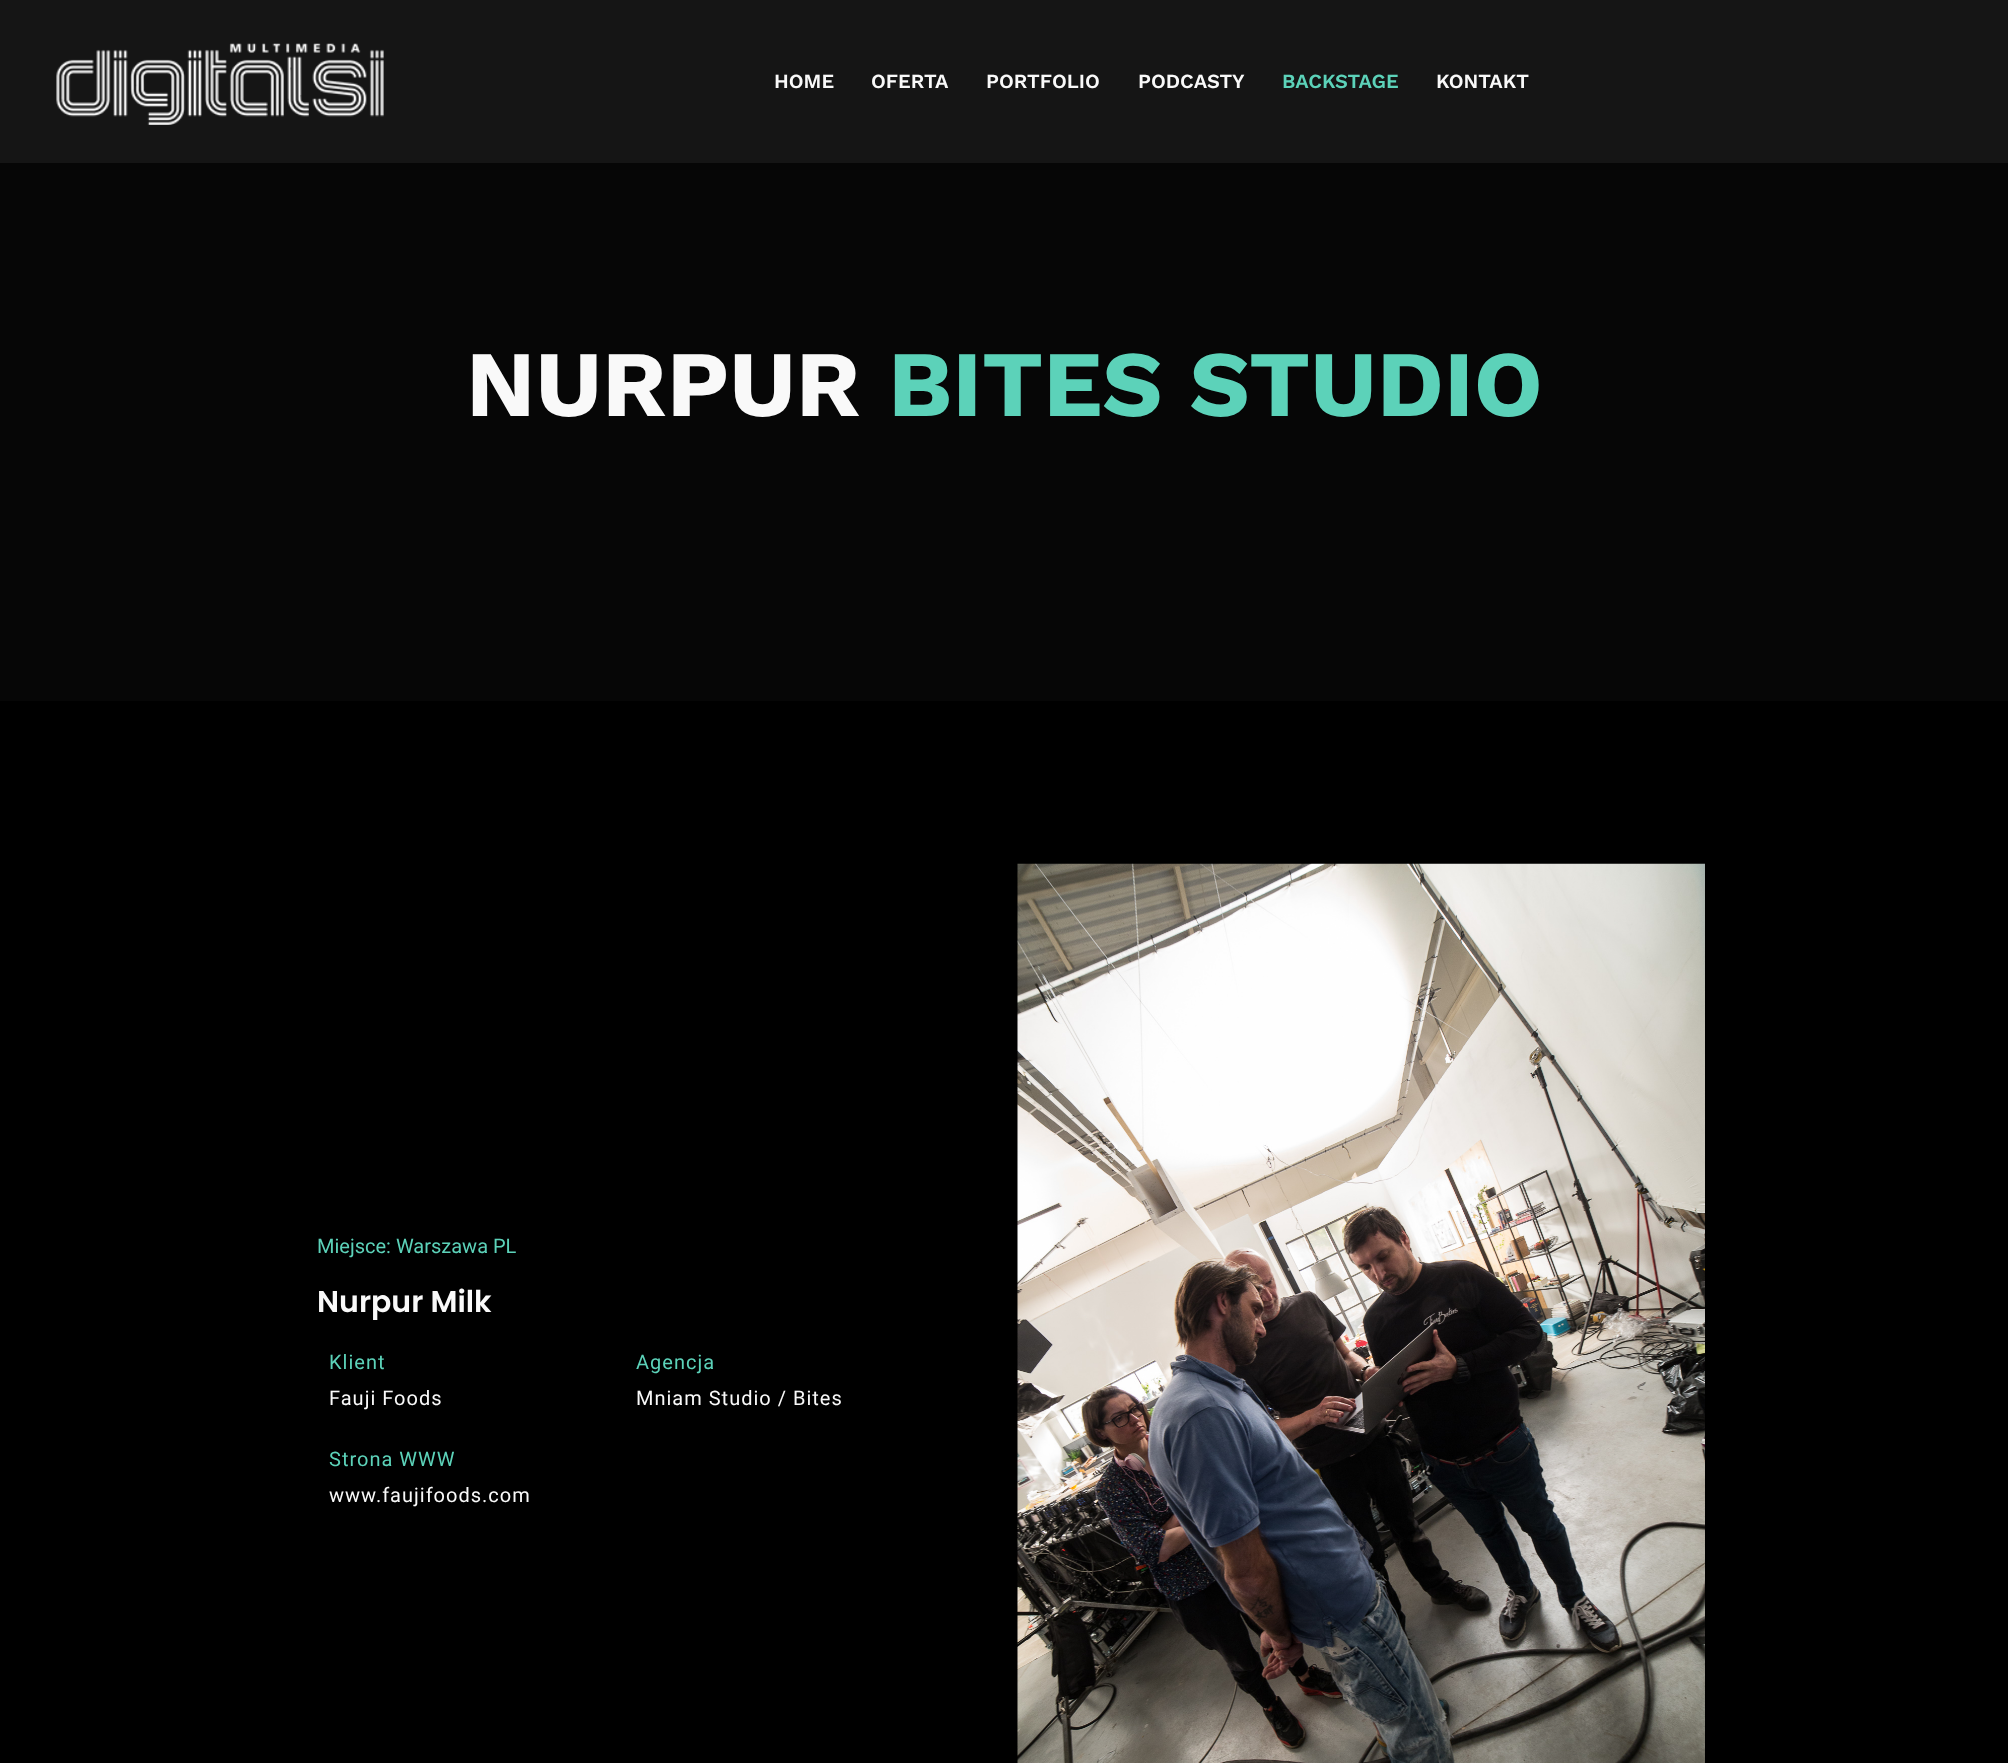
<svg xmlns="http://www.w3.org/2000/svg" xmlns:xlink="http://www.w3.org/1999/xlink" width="2008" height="1763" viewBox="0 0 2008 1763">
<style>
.cls-1{font:600 20px Work Sans;fill:#f9f9f9}
.cls-2{font:600 20px Work Sans;fill:#5cd2b9}
.cls-3{font:bold 93.75px Work Sans;fill:#f9f9f9}
.cls-4{font:bold 93.75px Work Sans;fill:#5cd2b9}
.cls-5{font:20px Roboto;fill:#5cd2b9}
.cls-6{font:600 30px Poppins;fill:#f9f9f9}
.cls-7{font:20px Roboto;letter-spacing:1px;fill:#5cd2b9}
.cls-8{font:20px Roboto;letter-spacing:1px;fill:#f9f9f9}
</style>
<rect width="100%" height="100%" fill="#000000"/>
<rect fill="#151515" x="0" y="0" width="2008" height="163"/>
<image xlink:href="image0.png" x="56" y="43" width="328" height="82"/>
<rect fill="#060606" x="0" y="163" width="2008" height="538"/>
<image xlink:href="image1.png" x="1017" y="863" width="688" height="900"/>
<text class="cls-1" x="774" y="88">HOME</text>
<text class="cls-1" x="871" y="88">OFERTA</text>
<text class="cls-1" x="986" y="88">PORTFOLIO</text>
<text class="cls-1" x="1138" y="88">PODCASTY</text>
<text class="cls-2" x="1282" y="88">BACKSTAGE</text>
<text class="cls-1" x="1436" y="88">KONTAKT</text>
<text class="cls-3" x="466" y="416">NURPUR</text>
<text class="cls-4" x="888" y="416">BITES STUDIO</text>
<text class="cls-5" x="317" y="1253">Miejsce: Warszawa PL</text>
<text class="cls-6" x="317" y="1312">Nurpur Milk</text>
<text class="cls-7" x="329" y="1369">Klient</text>
<text class="cls-8" x="329" y="1405">Fauji Foods</text>
<text class="cls-7" x="636" y="1369">Agencja</text>
<text class="cls-8" x="636" y="1405">Mniam Studio / Bites</text>
<text class="cls-7" x="329" y="1466">Strona WWW</text>
<text class="cls-8" x="329" y="1502">www.faujifoods.com</text>
</svg>
